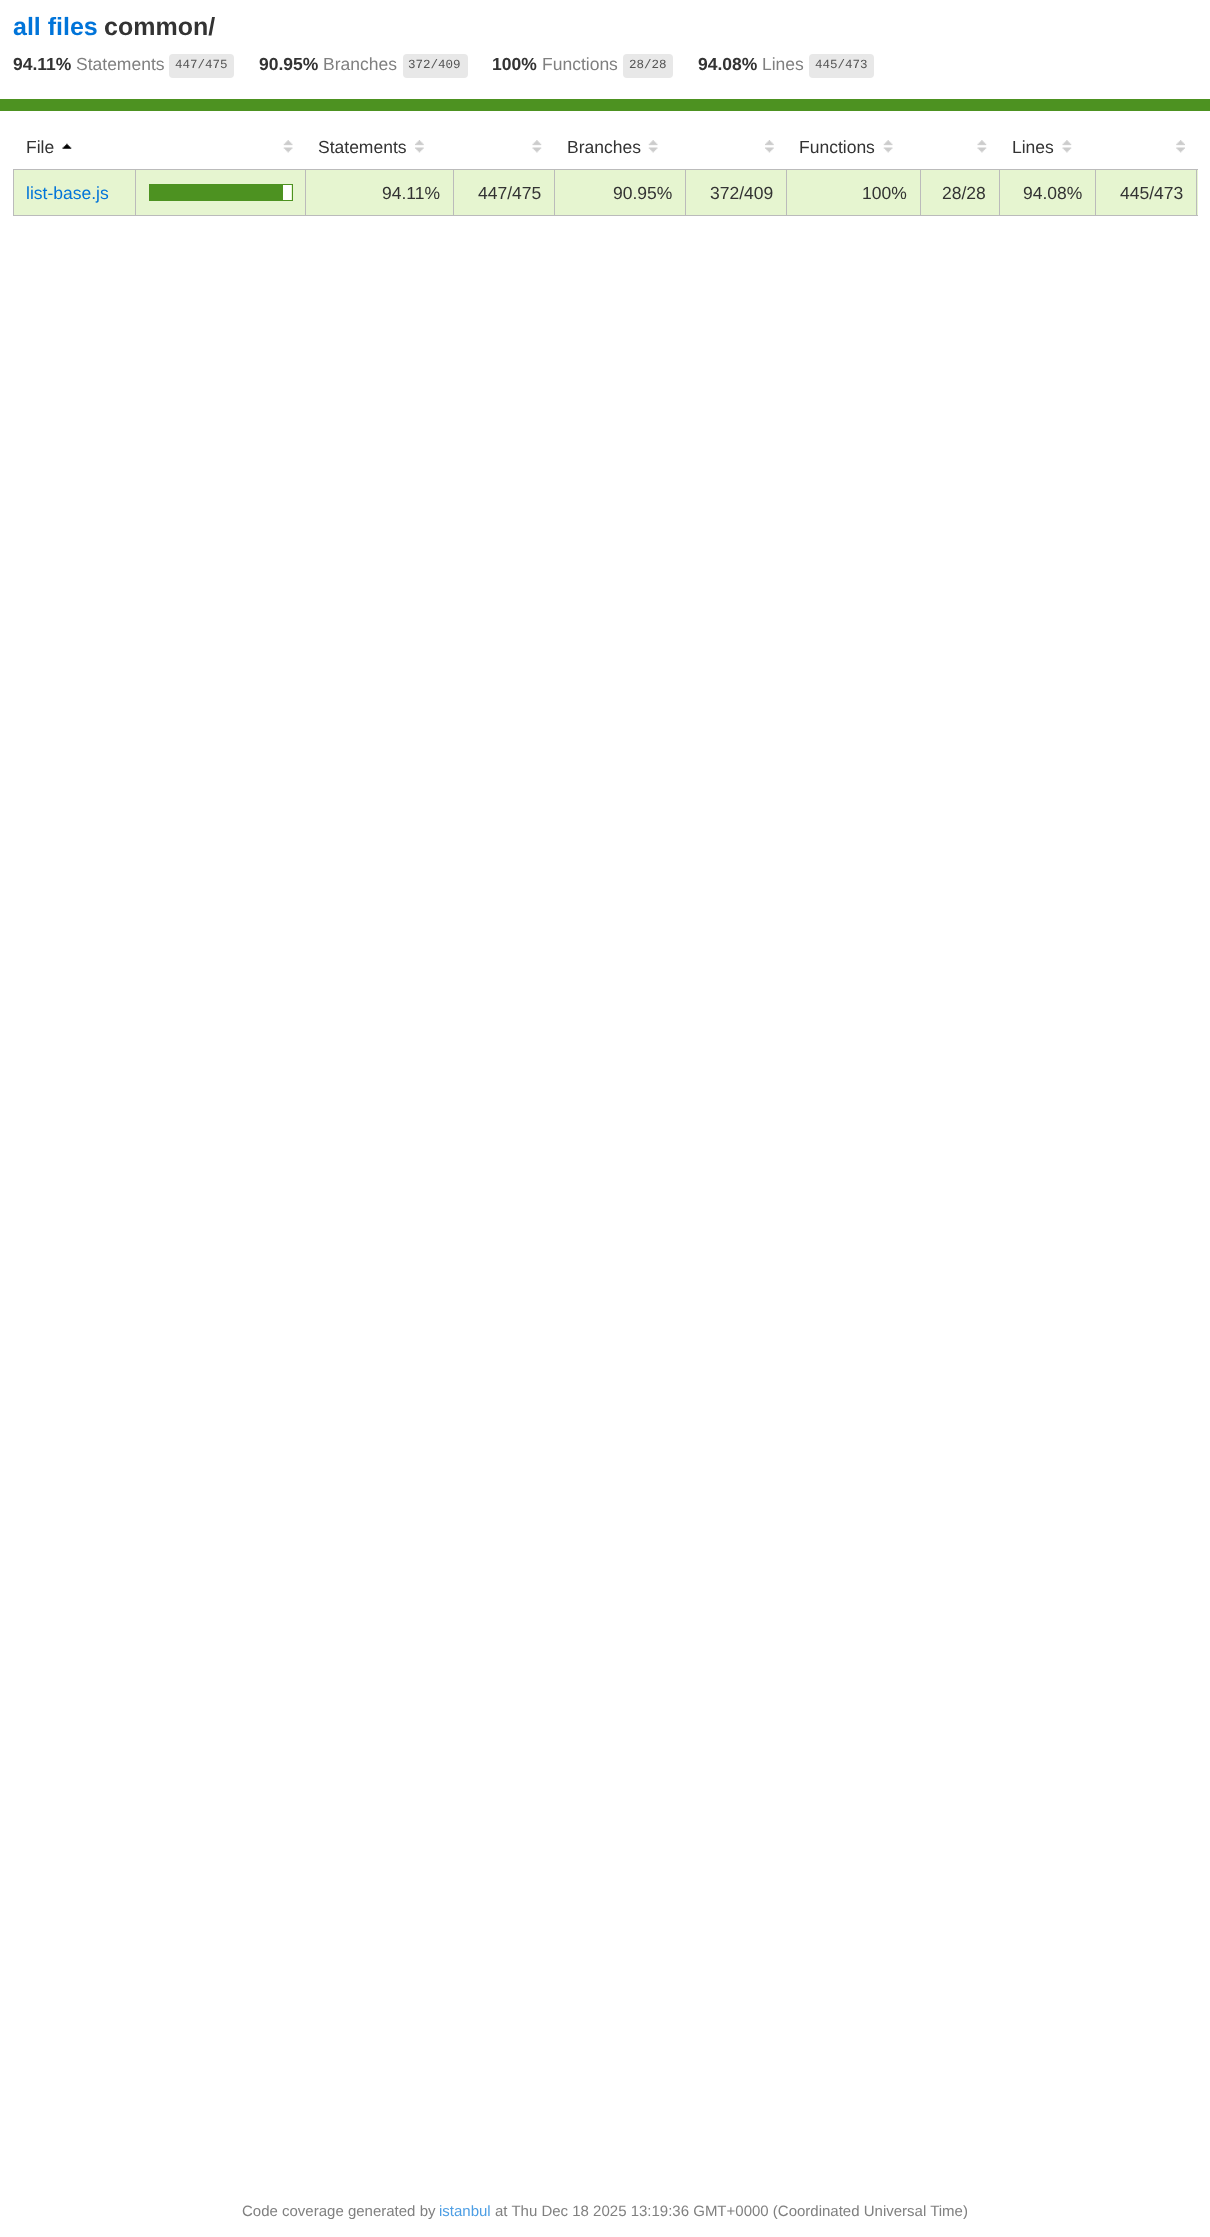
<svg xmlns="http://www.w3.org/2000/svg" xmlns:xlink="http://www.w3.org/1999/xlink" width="1210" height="2237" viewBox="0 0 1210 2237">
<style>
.cls-1{font:bold 25px Liberation Sans;fill:#0074d9}
.cls-2{font:bold 25px Liberation Sans;fill:#333333}
.cls-3{font:bold 17.5px Liberation Sans;fill:#333333}
.cls-4{font:17.5px Liberation Sans;fill:#808080}
.cls-5{font:12.5px Liberation Mono;fill:#555555}
.cls-6{font:17.5px Liberation Sans;fill:#333333}
.cls-7{font:17.5px Liberation Sans;fill:#0074d9}
.cls-8{font:15px Liberation Sans;fill:#808080}
.cls-9{font:15px Liberation Sans;fill:#4d9ee4}
</style>
<rect width="100%" height="100%" fill="#ffffff"/>
<rect fill="#e8e8e8" x="169" y="54" width="65" height="24" rx="4"/>
<rect fill="#e8e8e8" x="403" y="54" width="65" height="24" rx="4"/>
<rect fill="#e8e8e8" x="623" y="54" width="50" height="24" rx="4"/>
<rect fill="#e8e8e8" x="809" y="54" width="65" height="24" rx="4"/>
<rect fill="#4d9221" x="0" y="99" width="1210" height="12"/>
<image xlink:href="image0.png" x="62" y="143" width="10" height="6"/>
<image xlink:href="image1.png" x="283" y="140" width="10" height="13"/>
<image xlink:href="image2.png" x="415" y="140" width="9" height="13"/>
<image xlink:href="image3.png" x="532" y="140" width="10" height="13"/>
<image xlink:href="image4.png" x="648" y="140" width="10" height="13"/>
<image xlink:href="image2.png" x="765" y="140" width="9" height="13"/>
<image xlink:href="image1.png" x="883" y="140" width="10" height="13"/>
<image xlink:href="image3.png" x="977" y="140" width="10" height="13"/>
<image xlink:href="image3.png" x="1062" y="140" width="10" height="13"/>
<image xlink:href="image5.png" x="1176" y="140" width="9" height="13"/>
<rect fill="#bbbbbb" x="13" y="169" width="1185" height="1"/>
<rect fill="#e6f5d0" x="1096" y="170" width="102" height="45"/>
<rect fill="#bbbbbb" x="1196" y="169" width="1" height="47"/>
<rect fill="#bbbbbb" x="13" y="215" width="1185" height="1"/>
<rect fill="#bbbbbb" x="13" y="169" width="1" height="47"/>
<rect fill="#e6f5d0" x="14" y="170" width="121" height="45"/>
<rect fill="#bbbbbb" x="135" y="169" width="1" height="47"/>
<rect fill="#e6f5d0" x="136" y="170" width="169" height="45"/>
<rect fill="#bbbbbb" x="305" y="169" width="1" height="47"/>
<rect fill="none" stroke="#4d9221" x="149.5" y="184.5" width="143" height="16"/>
<rect fill="#4d9221" x="150" y="185" width="133" height="15"/>
<rect fill="#ffffff" x="283" y="185" width="8" height="15"/>
<rect fill="#e6f5d0" x="306" y="170" width="147" height="45"/>
<rect fill="#bbbbbb" x="453" y="169" width="1" height="47"/>
<rect fill="#e6f5d0" x="454" y="170" width="100" height="45"/>
<rect fill="#bbbbbb" x="554" y="169" width="1" height="47"/>
<rect fill="#e6f5d0" x="555" y="170" width="130" height="45"/>
<rect fill="#bbbbbb" x="685" y="169" width="1" height="47"/>
<rect fill="#e6f5d0" x="686" y="170" width="100" height="45"/>
<rect fill="#bbbbbb" x="786" y="169" width="1" height="47"/>
<rect fill="#e6f5d0" x="787" y="170" width="133" height="45"/>
<rect fill="#bbbbbb" x="920" y="169" width="1" height="47"/>
<rect fill="#e6f5d0" x="921" y="170" width="78" height="45"/>
<rect fill="#bbbbbb" x="999" y="169" width="1" height="47"/>
<rect fill="#e6f5d0" x="1000" y="170" width="95" height="45"/>
<rect fill="#bbbbbb" x="1095" y="169" width="1" height="47"/>
<text class="cls-1" x="13" y="35">all files</text>
<text class="cls-2" x="104" y="35">common/</text>
<text class="cls-3" x="13" y="70">94.11%</text>
<text class="cls-4" x="76" y="70">Statements</text>
<text class="cls-5" x="175" y="68">447/475</text>
<text class="cls-3" x="259" y="70">90.95%</text>
<text class="cls-4" x="323" y="70">Branches</text>
<text class="cls-5" x="408" y="68">372/409</text>
<text class="cls-3" x="492" y="70">100%</text>
<text class="cls-4" x="542" y="70">Functions</text>
<text class="cls-5" x="629" y="68">28/28</text>
<text class="cls-3" x="698" y="70">94.08%</text>
<text class="cls-4" x="762" y="70">Lines</text>
<text class="cls-5" x="815" y="68">445/473</text>
<text class="cls-6" x="26" y="153">File</text>
<text class="cls-6" x="318" y="153">Statements</text>
<text class="cls-6" x="567" y="153">Branches</text>
<text class="cls-6" x="799" y="153">Functions</text>
<text class="cls-6" x="1012" y="153">Lines</text>
<text class="cls-7" x="26" y="199">list-base.js</text>
<text class="cls-6" x="382" y="199">94.11%</text>
<text class="cls-6" x="478" y="199">447/475</text>
<text class="cls-6" x="613" y="199">90.95%</text>
<text class="cls-6" x="710" y="199">372/409</text>
<text class="cls-6" x="862" y="199">100%</text>
<text class="cls-6" x="942" y="199">28/28</text>
<text class="cls-6" x="1023" y="199">94.08%</text>
<text class="cls-6" x="1120" y="199">445/473</text>
<text class="cls-8" x="242" y="2216">Code coverage generated by</text>
<text class="cls-9" x="439" y="2216">istanbul</text>
<text class="cls-8" x="495" y="2216">at Thu Dec 18 2025 13:19:36 GMT+0000 (Coordinated Universal Time)</text>
</svg>
